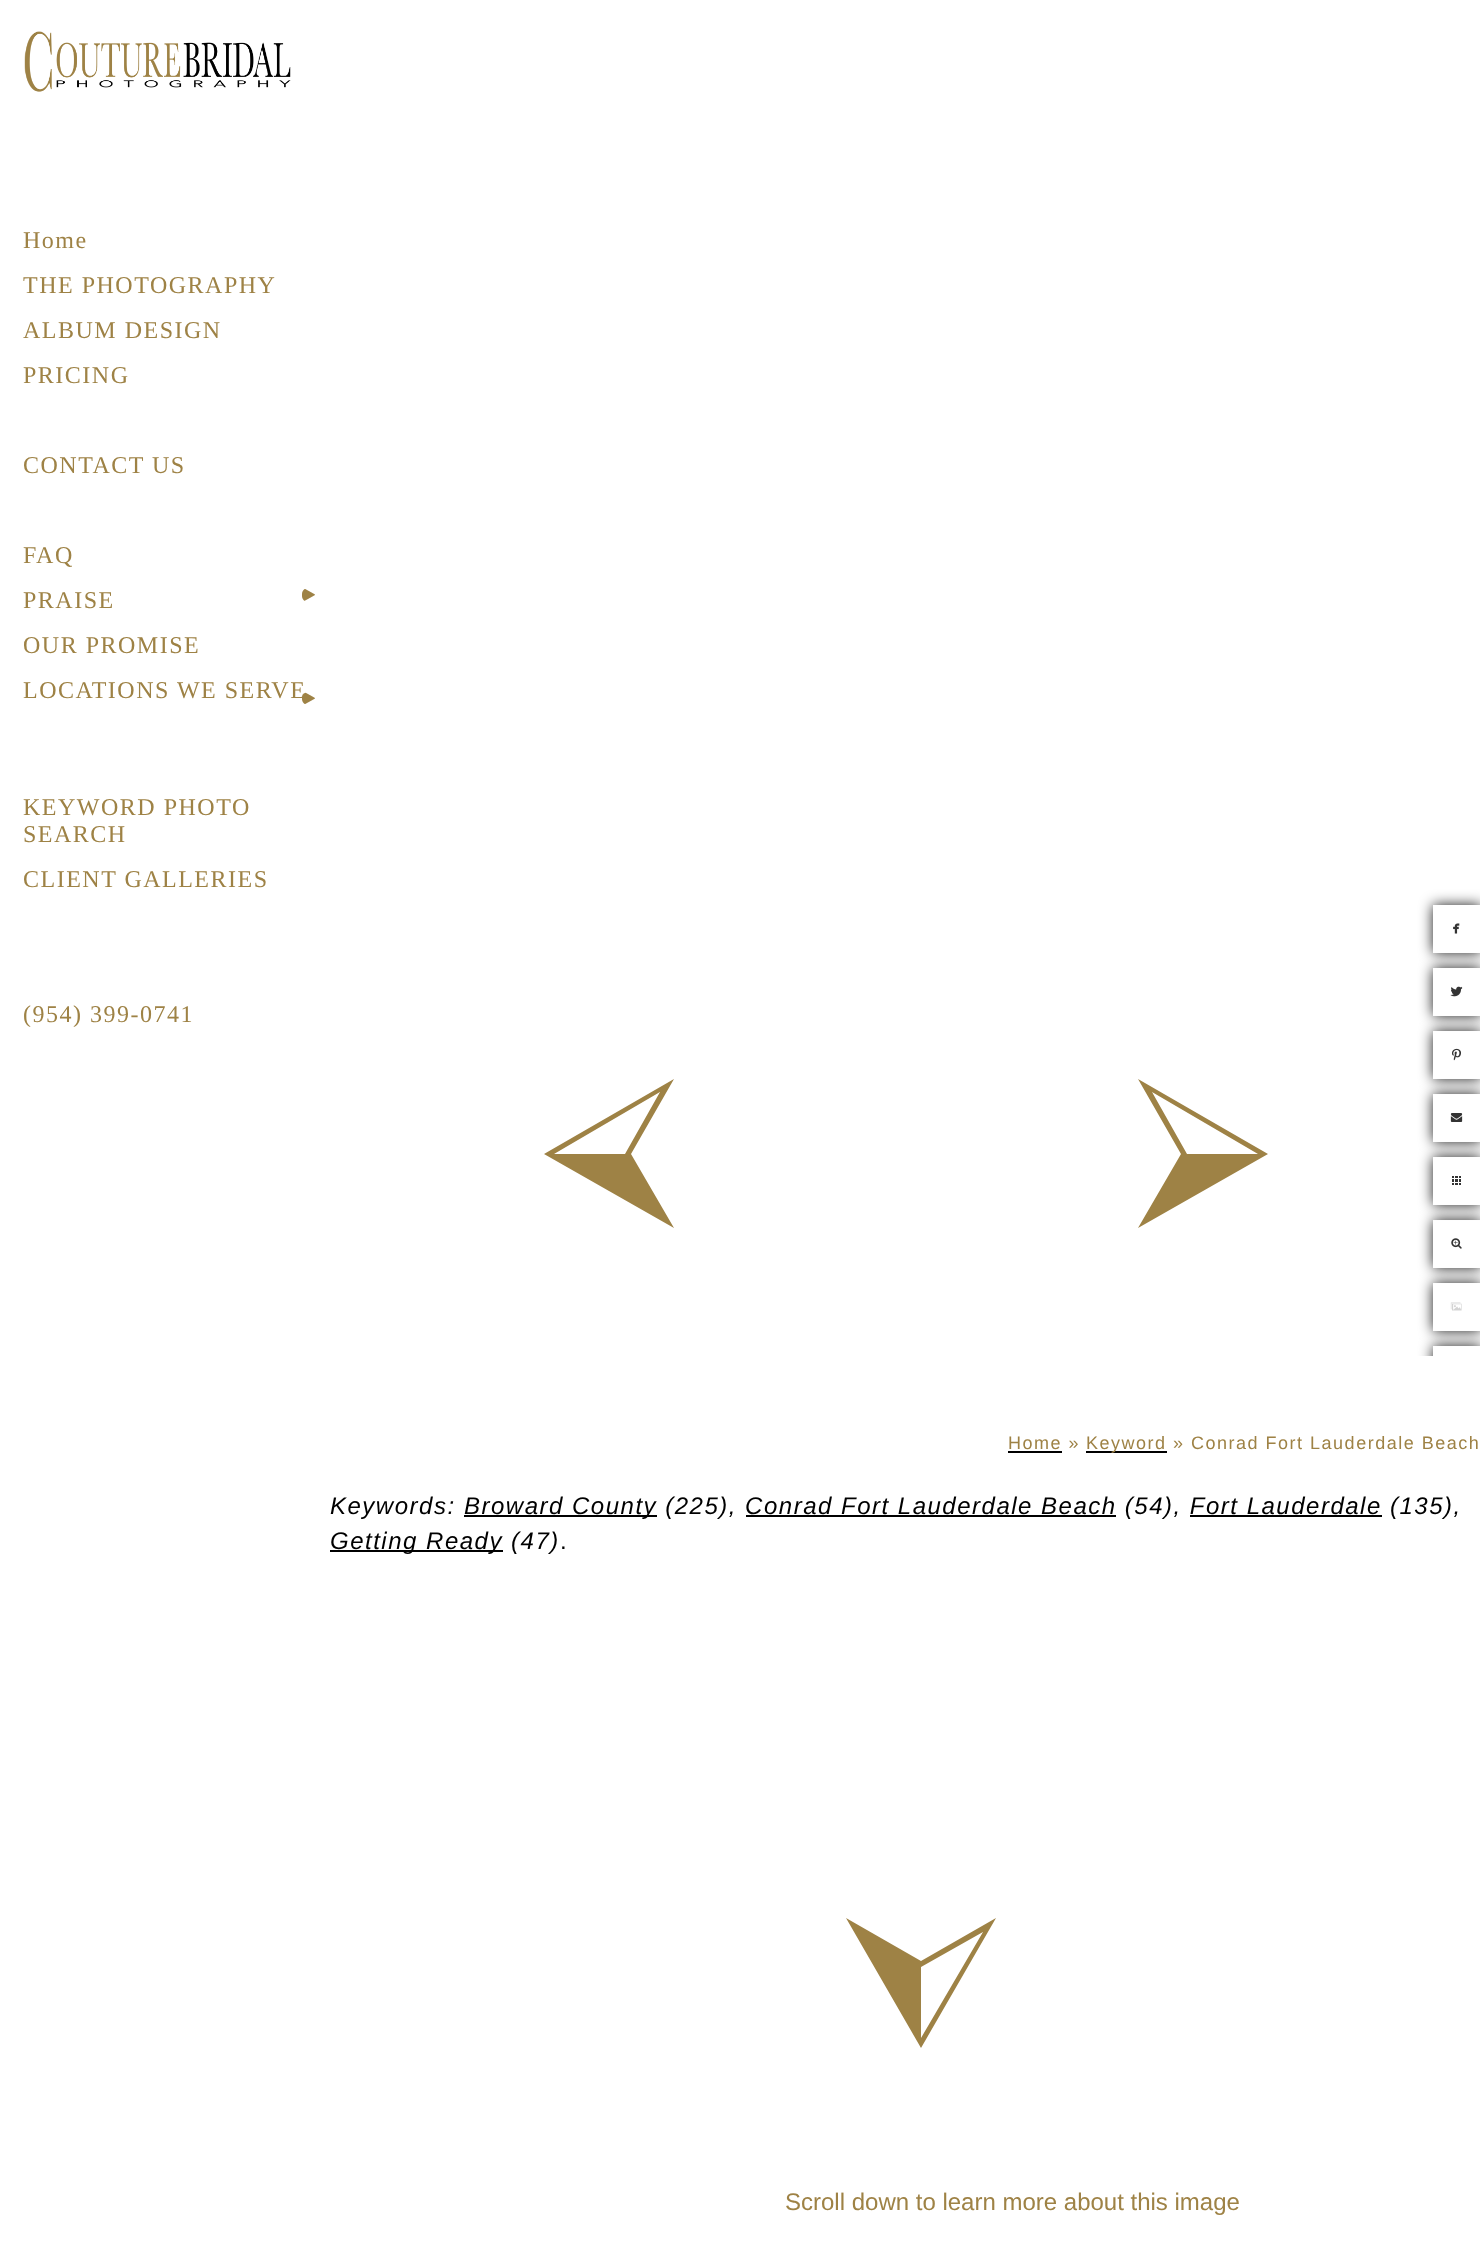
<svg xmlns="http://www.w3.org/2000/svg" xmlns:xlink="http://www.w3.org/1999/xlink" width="1480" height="2260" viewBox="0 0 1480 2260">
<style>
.cls-1{font:24px Liberation Serif;letter-spacing:1.5px;fill:#9e8245}
.cls-2{font:18px Liberation Sans;letter-spacing:1.5px;fill:#9e8245}
.cls-3{font:italic 24px Liberation Sans;letter-spacing:1.5px;fill:#000000}
.cls-4{font:24px Liberation Sans;letter-spacing:1.5px;fill:#000000}
.cls-5{font:24px Liberation Sans;fill:#9e8245}
</style>
<defs>
<clipPath id="clip1"><path d="M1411 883H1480V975H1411ZM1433 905H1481V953H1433Z" clip-rule="evenodd"/></clipPath>
<clipPath id="clip2"><path d="M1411 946H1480V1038H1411ZM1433 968H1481V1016H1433Z" clip-rule="evenodd"/></clipPath>
<clipPath id="clip3"><path d="M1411 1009H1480V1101H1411ZM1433 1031H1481V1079H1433Z" clip-rule="evenodd"/></clipPath>
<clipPath id="clip4"><path d="M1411 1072H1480V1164H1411ZM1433 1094H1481V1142H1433Z" clip-rule="evenodd"/></clipPath>
<clipPath id="clip5"><path d="M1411 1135H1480V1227H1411ZM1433 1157H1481V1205H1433Z" clip-rule="evenodd"/></clipPath>
<clipPath id="clip6"><path d="M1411 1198H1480V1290H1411ZM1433 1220H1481V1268H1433Z" clip-rule="evenodd"/></clipPath>
<clipPath id="clip7"><path d="M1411 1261H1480V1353H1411ZM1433 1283H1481V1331H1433Z" clip-rule="evenodd"/></clipPath>
<clipPath id="clip8"><path d="M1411 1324H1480V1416H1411ZM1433 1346H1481V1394H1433Z" clip-rule="evenodd"/></clipPath>
</defs>
<rect width="100%" height="100%" fill="#ffffff"/>
<image xlink:href="image0.png" x="24" y="31" width="267" height="61"/>
<image xlink:href="image1.png" x="302" y="589" width="13" height="12"/>
<g clip-path="url(#clip1)">
<rect fill="#000000" fill-opacity="0.9" filter="blur(7px)" x="1433" y="905" width="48" height="48"/>
</g>
<image xlink:href="image3.png" x="1453" y="923" width="7" height="11"/>
<g clip-path="url(#clip2)">
<rect fill="#000000" fill-opacity="0.9" filter="blur(7px)" x="1433" y="968" width="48" height="48"/>
</g>
<image xlink:href="image4.png" x="1450" y="986" width="13" height="11"/>
<g clip-path="url(#clip3)">
<rect fill="#000000" fill-opacity="0.9" filter="blur(7px)" x="1433" y="1031" width="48" height="48"/>
</g>
<image xlink:href="image5.png" x="1452" y="1048" width="9" height="13"/>
<g clip-path="url(#clip4)">
<rect fill="#000000" fill-opacity="0.9" filter="blur(7px)" x="1433" y="1094" width="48" height="48"/>
</g>
<image xlink:href="image6.png" x="1450" y="1113" width="13" height="9"/>
<g clip-path="url(#clip5)">
<rect fill="#000000" fill-opacity="0.9" filter="blur(7px)" x="1433" y="1157" width="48" height="48"/>
</g>
<image xlink:href="image7.png" x="1452" y="1176" width="9" height="9"/>
<g clip-path="url(#clip6)">
<rect fill="#000000" fill-opacity="0.9" filter="blur(7px)" x="1433" y="1220" width="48" height="48"/>
</g>
<image xlink:href="image8.png" x="1451" y="1238" width="11" height="11"/>
<g clip-path="url(#clip7)">
<rect fill="#000000" fill-opacity="0.9" filter="blur(7px)" x="1433" y="1283" width="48" height="48"/>
</g>
<image xlink:href="image9.png" x="1450" y="1302" width="12" height="9"/>
<g clip-path="url(#clip8)">
<rect fill="#000000" fill-opacity="0.9" filter="blur(7px)" x="1433" y="1346" width="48" height="48"/>
</g>
<rect fill="#ffffff" x="1417" y="1356" width="63" height="54"/>
<rect fill="#000000" x="1008" y="1451" width="54" height="2"/>
<rect fill="#000000" x="1086" y="1451" width="81" height="2"/>
<rect fill="#000000" x="464" y="1515" width="193" height="2"/>
<rect fill="#000000" x="746" y="1515" width="370" height="2"/>
<rect fill="#000000" x="1190" y="1515" width="192" height="2"/>
<rect fill="#000000" x="330" y="1550" width="173" height="2"/>
<path fill="#9e8245" d="M674 1228L544 1154L674 1079L631 1154ZM554 1154H625L660 1092Z"/>
<path fill="#9e8245" d="M1138 1228L1268 1154L1138 1079L1181 1154ZM1258 1154H1187L1152 1092Z"/>
<path fill="#9e8245" d="M846 1918L921 2048L996 1918L921 1961ZM921 2038V1967L983 1932Z"/>
<text class="cls-1"><tspan x="23" y="248">Home</tspan><tspan x="23" y="293">THE PHOTOGRAPHY</tspan><tspan x="23" y="338">ALBUM DESIGN</tspan><tspan x="23" y="383">PRICING</tspan></text>
<text class="cls-1" x="23" y="473">CONTACT US</text>
<text class="cls-1"><tspan x="23" y="563">FAQ</tspan><tspan x="23" y="608">PRAISE</tspan><tspan x="23" y="653">OUR PROMISE</tspan><tspan x="23" y="698">LOCATIONS WE SERVE</tspan></text>
<image xlink:href="image2.png" x="302" y="692" width="13" height="12"/>
<text class="cls-1"><tspan x="23" y="815">KEYWORD PHOTO</tspan><tspan x="23" y="842">SEARCH</tspan><tspan x="23" y="887">CLIENT GALLERIES</tspan></text>
<text class="cls-1" x="23" y="1022">(954) 399-0741</text>
<text class="cls-2" x="1008" y="1449">Home »</text>
<text class="cls-2" x="1086" y="1449">Keyword » Conrad Fort Lauderdale Beach</text>
<text class="cls-3" x="330" y="1514">Keywords:</text>
<text class="cls-3" x="464" y="1514">Broward County (225), Conrad Fort Lauderdale Beach (54), Fort Lauderdale (135),</text>
<text class="cls-3" x="330" y="1549">Getting Ready (47)</text>
<text class="cls-4" x="560" y="1549">.</text>
<text class="cls-5" x="785" y="2210">Scroll down to learn more about this image</text>
</svg>
